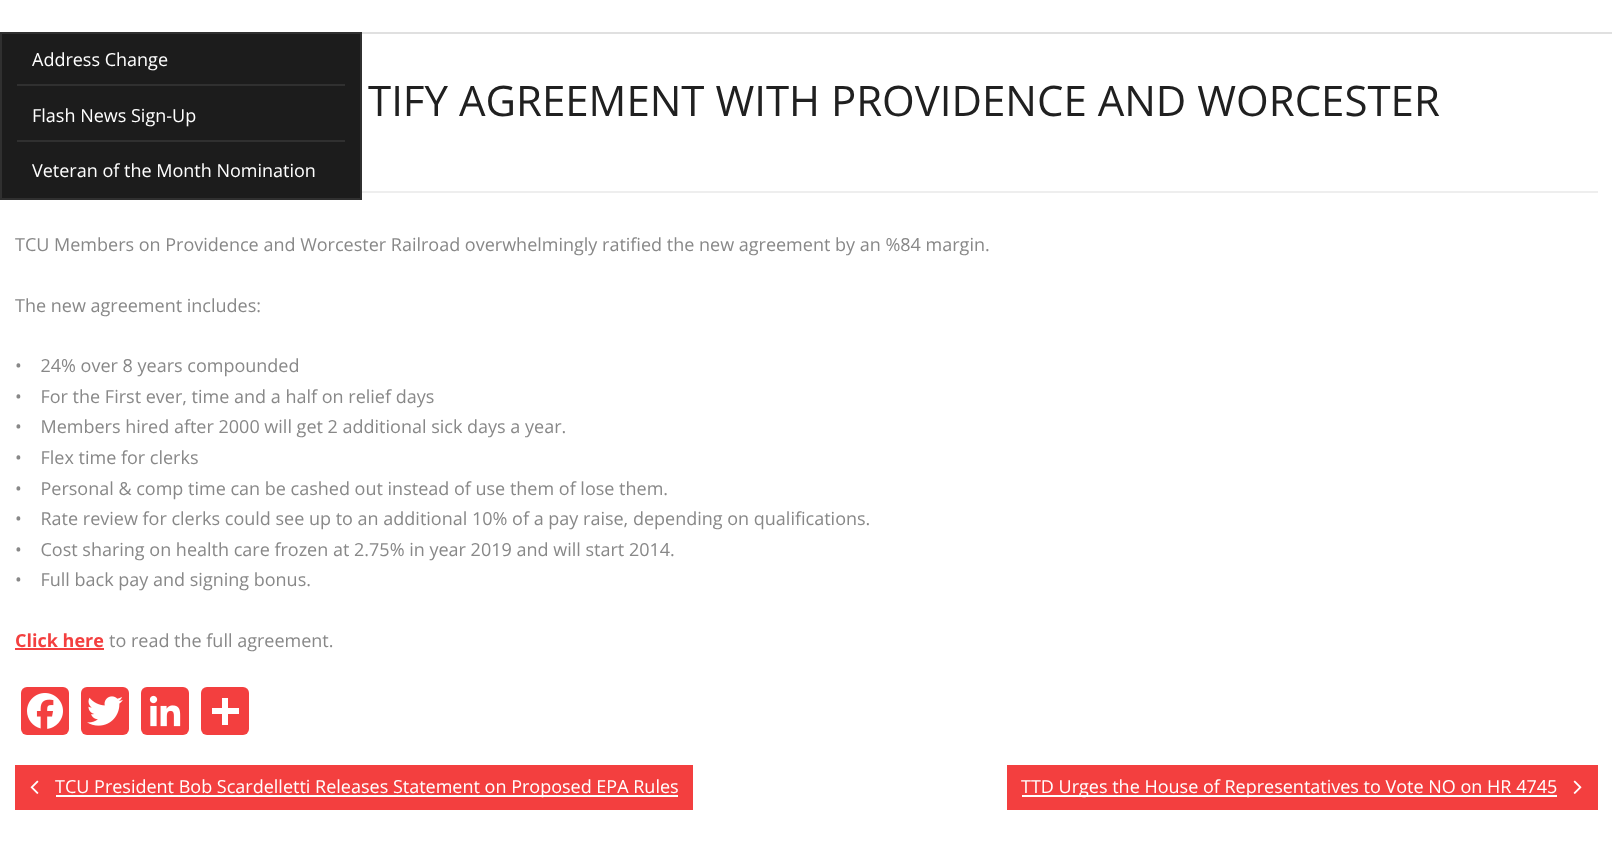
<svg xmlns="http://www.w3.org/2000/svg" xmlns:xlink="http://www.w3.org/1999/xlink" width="1612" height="854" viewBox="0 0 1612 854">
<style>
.cls-1{font:18px Open Sans;fill:#ffffff}
.cls-2{font:42px Open Sans;fill:#202020}
.cls-3{font:18px Open Sans;fill:#888888}
.cls-4{font:bold 18px Open Sans;fill:#f33f3f}
</style>
<rect width="100%" height="100%" fill="#ffffff"/>
<rect fill="#e0e0e0" x="362" y="32" width="1250" height="2"/>
<rect fill="#1c1c1c" stroke="#303030" stroke-width="2" x="1" y="33" width="360" height="166"/>
<rect fill="#303030" x="17" y="84" width="328" height="2"/>
<rect fill="#303030" x="17" y="140" width="328" height="2"/>
<rect fill="#eeeeee" x="362" y="191" width="1236" height="2"/>
<rect fill="#f33f3f" x="15" y="648" width="89" height="2"/>
<rect fill="#f33f3f" x="21" y="687" width="48" height="48" rx="6"/>
<image xlink:href="image0.png" x="27" y="693" width="36" height="36"/>
<rect fill="#f33f3f" x="81" y="687" width="48" height="48" rx="6"/>
<image xlink:href="image1.png" x="87" y="696" width="36" height="30"/>
<rect fill="#f33f3f" x="141" y="687" width="48" height="48" rx="6"/>
<image xlink:href="image2.png" x="149" y="695" width="32" height="32"/>
<rect fill="#f33f3f" x="201" y="687" width="48" height="48" rx="6"/>
<rect fill="#ffffff" x="222" y="698" width="6" height="27"/>
<rect fill="#ffffff" x="212" y="708" width="27" height="6"/>
<rect fill="#f33f3f" x="15" y="765" width="678" height="45"/>
<image xlink:href="image3.png" x="30" y="780" width="9" height="14"/>
<rect fill="#ffffff" x="56" y="795" width="622" height="2"/>
<rect fill="#f33f3f" x="1007" y="765" width="591" height="45"/>
<rect fill="#ffffff" x="1022" y="795" width="535" height="2"/>
<image xlink:href="image4.png" x="1573" y="780" width="9" height="14"/>
<text class="cls-1" x="32" y="66">Address Change</text>
<text class="cls-1" x="32" y="122">Flash News Sign-Up</text>
<text class="cls-1" x="32" y="177">Veteran of the Month Nomination</text>
<text class="cls-2" x="368" y="116">TIFY AGREEMENT WITH PROVIDENCE AND WORCESTER</text>
<text class="cls-3" x="15" y="251">TCU Members on Providence and Worcester Railroad overwhelmingly ratified the new agreement by an %84 margin.</text>
<text class="cls-3" x="15" y="312">The new agreement includes:</text>
<text class="cls-3" xml:space="preserve"><tspan x="15" y="372">•    24% over 8 years compounded</tspan><tspan x="15" y="403">•    For the First ever, time and a half on relief days</tspan><tspan x="15" y="433">•    Members hired after 2000 will get 2 additional sick days a year.</tspan><tspan x="15" y="464">•    Flex time for clerks</tspan><tspan x="15" y="495">•    Personal &amp; comp time can be cashed out instead of use them of lose them.</tspan><tspan x="15" y="525">•    Rate review for clerks could see up to an additional 10% of a pay raise, depending on qualifications.</tspan><tspan x="15" y="556">•    Cost sharing on health care frozen at 2.75% in year 2019 and will start 2014.</tspan><tspan x="15" y="586">•    Full back pay and signing bonus.</tspan></text>
<text class="cls-4" x="15" y="647">Click here</text>
<text class="cls-3" x="109" y="647">to read the full agreement.</text>
<text class="cls-1" x="55" y="793">TCU President Bob Scardelletti Releases Statement on Proposed EPA Rules</text>
<text class="cls-1" x="1021" y="793">TTD Urges the House of Representatives to Vote NO on HR 4745</text>
</svg>
